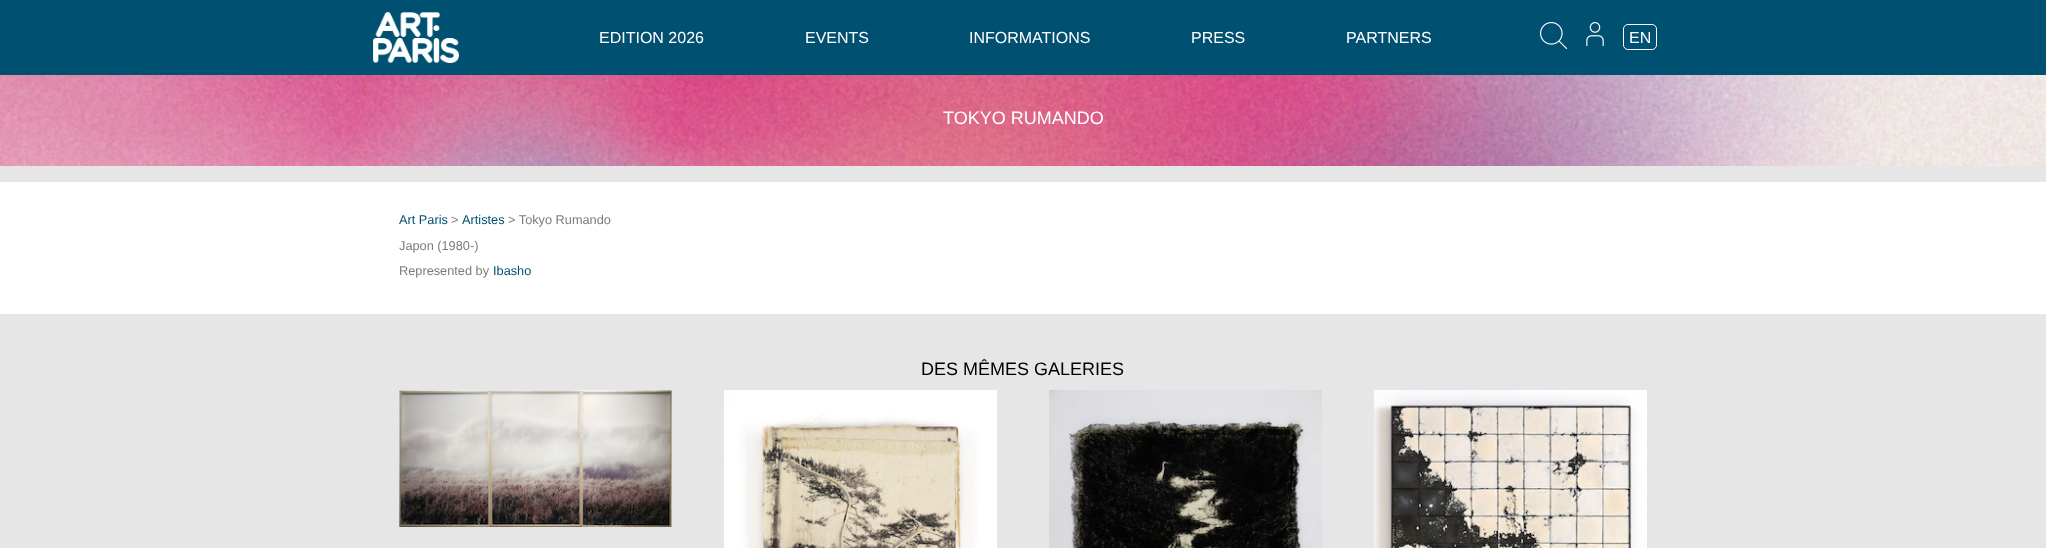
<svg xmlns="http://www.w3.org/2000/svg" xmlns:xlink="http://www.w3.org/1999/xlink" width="2046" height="548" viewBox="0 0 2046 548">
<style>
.cls-1{font:16px Liberation Sans;fill:#ffffff}
.cls-2{font:18px Liberation Sans;fill:#ffffff}
.cls-3{font:12.75px Liberation Sans;fill:#005071}
.cls-4{font:12.75px Liberation Sans;fill:#7b7b7c}
.cls-5{font:18px Liberation Sans;fill:#000000}
</style>
<rect width="100%" height="100%" fill="#ffffff"/>
<rect fill="#005071" x="0" y="0" width="2046" height="75"/>
<image xlink:href="image0.png" x="373" y="12" width="86" height="51"/>
<image xlink:href="image1.png" x="1540" y="22" width="27" height="27"/>
<image xlink:href="image2.png" x="1586" y="22" width="18" height="24"/>
<rect fill="none" stroke="#ffffff" x="1623.5" y="24.5" width="33" height="25" rx="4.5"/>
<rect fill="#e6e6e6" x="0" y="166" width="2046" height="16"/>
<image xlink:href="image3.png" x="0" y="75" width="2046" height="91"/>
<rect fill="#e6e6e6" x="0" y="314" width="2046" height="234"/>
<image xlink:href="image4.png" x="399" y="390" width="273" height="137"/>
<image xlink:href="image5.png" x="724" y="390" width="273" height="158"/>
<image xlink:href="image6.png" x="1049" y="390" width="273" height="158"/>
<image xlink:href="image7.png" x="1374" y="390" width="273" height="158"/>
<text class="cls-1" x="599" y="43">EDITION 2026</text>
<text class="cls-1" x="805" y="43">EVENTS</text>
<text class="cls-1" x="969" y="43">INFORMATIONS</text>
<text class="cls-1" x="1191" y="43">PRESS</text>
<text class="cls-1" x="1346" y="43">PARTNERS</text>
<text class="cls-1" x="1629" y="43">EN</text>
<text class="cls-2" x="943" y="124">TOKYO RUMANDO</text>
<text class="cls-3" x="399" y="224">Art Paris</text>
<text class="cls-4" x="451" y="224">&gt;</text>
<text class="cls-3" x="462" y="224">Artistes</text>
<text class="cls-4" x="508" y="224">&gt; Tokyo Rumando</text>
<text class="cls-4"><tspan x="399" y="250">Japon (1980-)</tspan><tspan x="399" y="275">Represented by</tspan></text>
<text class="cls-3" x="493" y="275">Ibasho</text>
<text class="cls-5" x="921" y="375">DES MÊMES GALERIES</text>
</svg>
